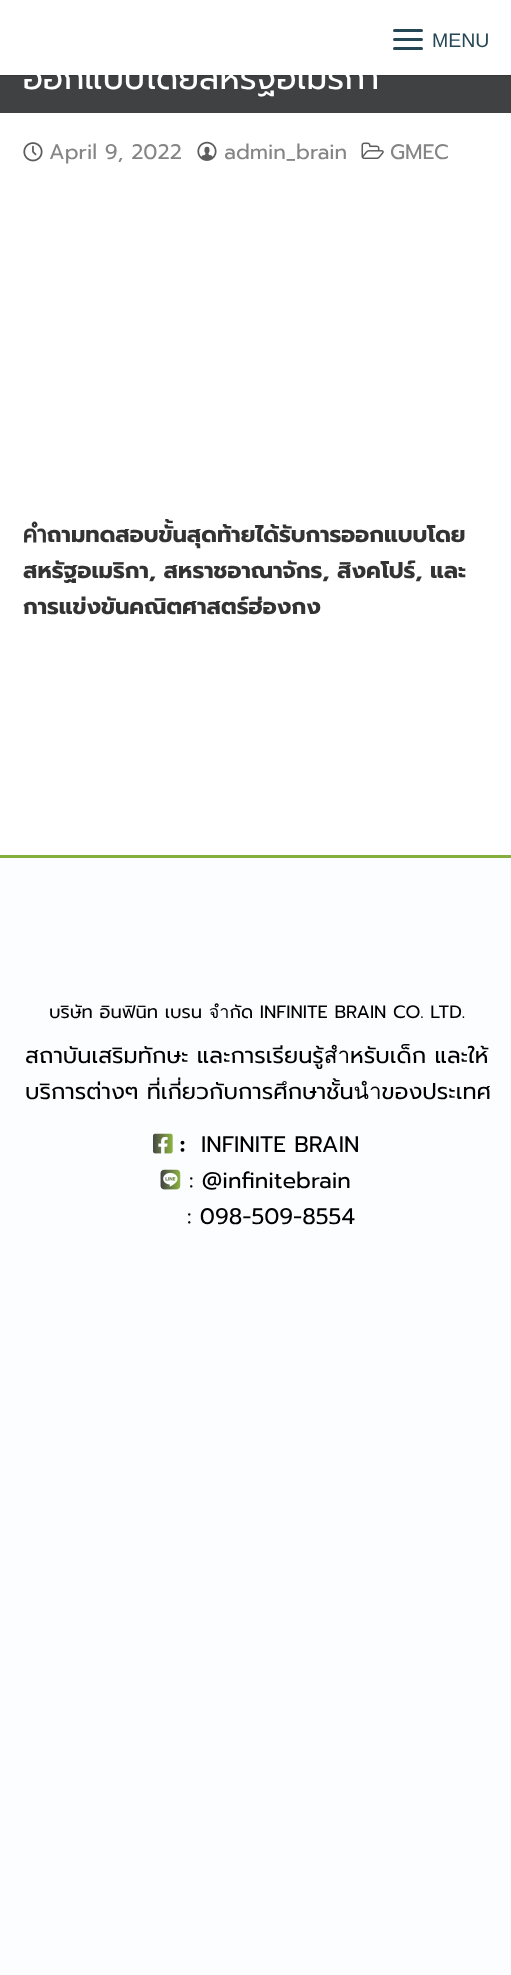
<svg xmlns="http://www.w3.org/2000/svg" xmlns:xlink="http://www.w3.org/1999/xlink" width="511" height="1975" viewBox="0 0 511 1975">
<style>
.cls-1{font:19.5px Liberation Sans;fill:#254655}
.cls-2{font:33px Prompt;fill:#ffffff}
.cls-3{font:21px Prompt;fill:#858585}
.cls-4{font:bold 22.5px Prompt;fill:#333333}
.cls-5{font:18px Prompt;fill:#000000}
.cls-6{font:22.5px Prompt;fill:#000000}
.cls-7{font:bold 22.5px Prompt;fill:#000000}
</style>
<rect width="100%" height="100%" fill="#ffffff"/>
<rect fill="#3f4142" x="0" y="75" width="511" height="38"/>
<rect fill="#000000" fill-opacity="0.4" filter="blur(1px)" x="0" y="0" width="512" height="75"/>
<rect fill="#ffffff" x="0" y="0" width="511" height="75"/>
<rect fill="#254655" x="393" y="29" width="30" height="3" rx="1.5"/>
<rect fill="#254655" x="393" y="38" width="30" height="3" rx="1.5"/>
<rect fill="#254655" x="393" y="47" width="30" height="3" rx="1.5"/>
<image xlink:href="image0.png" x="23" y="142" width="20" height="20"/>
<image xlink:href="image1.png" x="197" y="141" width="20" height="20"/>
<image xlink:href="image2.png" x="361" y="142" width="23" height="17"/>
<rect fill="#fcfdff" x="0" y="858" width="511" height="1117"/>
<rect fill="#84af3c" x="0" y="855" width="511" height="3"/>
<image xlink:href="image3.png" x="153" y="1133" width="20" height="21"/>
<image xlink:href="image4.png" x="160" y="1169" width="21" height="21"/>
<text class="cls-1" x="432" y="47">MENU</text>
<text class="cls-2" x="23" y="89">ออกแบบโดยสหรัฐอเมริกา</text>
<text class="cls-3" x="49" y="159">April 9, 2022</text>
<text class="cls-3" x="224" y="159">admin_brain</text>
<text class="cls-3" x="390" y="159">GMEC</text>
<text class="cls-4"><tspan x="23" y="542">คำถามทดสอบขั้นสุดท้ายได้รับการออกแบบโดย</tspan><tspan x="23" y="578">สหรัฐอเมริกา, สหราชอาณาจักร, สิงคโปร์, และ</tspan><tspan x="23" y="614">การแข่งขันคณิตศาสตร์ฮ่องกง</tspan></text>
<text class="cls-5" x="49" y="1018">บริษัท อินฟินิท เบรน จำกัด INFINITE BRAIN CO. LTD.</text>
<text class="cls-6"><tspan x="25" y="1063">สถาบันเสริมทักษะ และการเรียนรู้สำหรับเด็ก และให้</tspan><tspan x="25" y="1099">บริการต่างๆ ที่เกี่ยวกับการศึกษาชั้นนำของประเทศ</tspan></text>
<text class="cls-7" x="180" y="1152">:</text>
<text class="cls-6" x="201" y="1152">INFINITE BRAIN</text>
<text class="cls-6" x="189" y="1188">: @infinitebrain</text>
<text class="cls-6" x="187" y="1224">: 098-509-8554</text>
</svg>
